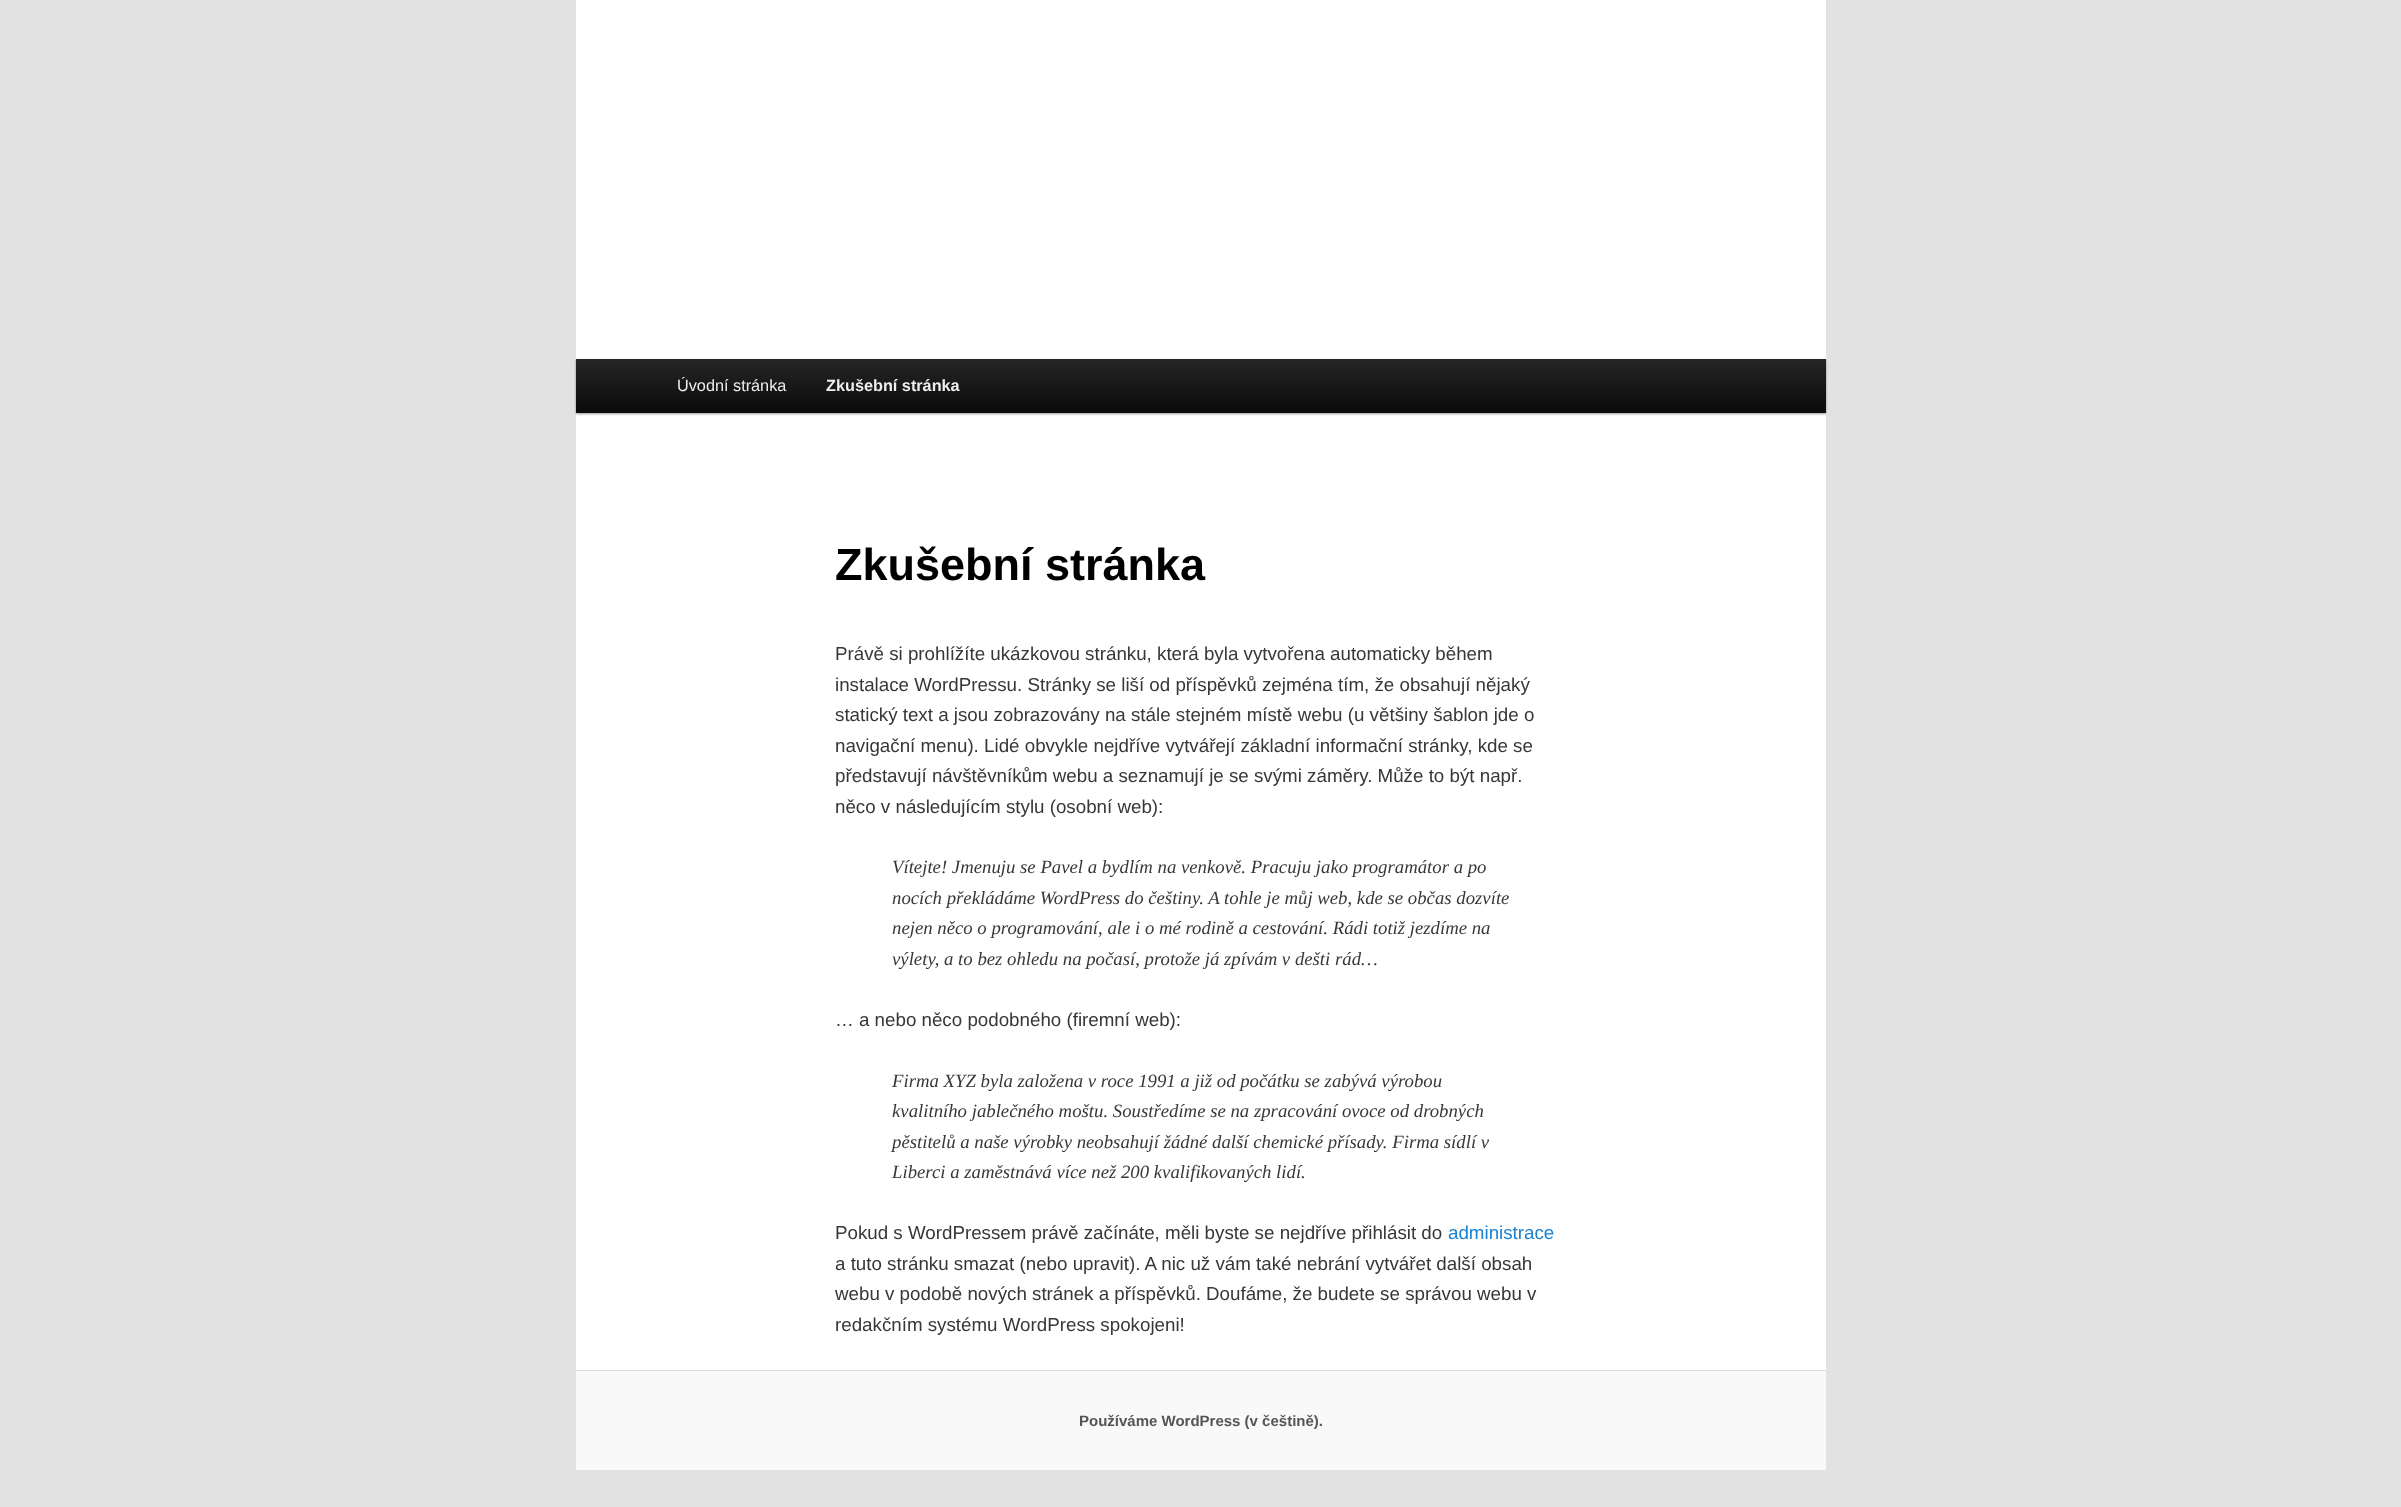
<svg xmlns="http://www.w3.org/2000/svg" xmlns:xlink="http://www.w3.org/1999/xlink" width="2401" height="1507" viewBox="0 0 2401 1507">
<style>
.cls-1{font:16.25px Liberation Sans;fill:#eeeeee}
.cls-2{font:bold 16.25px Liberation Sans;fill:#eeeeee}
.cls-3{font:bold 45px Liberation Sans;fill:#000000}
.cls-4{font:18.75px Liberation Sans;fill:#373737}
.cls-5{font:italic 18.75px Liberation Serif;fill:#373737}
.cls-6{font:18.75px Liberation Sans;fill:#1982d1}
.cls-7{font:bold 15px Liberation Sans;fill:#555555}
</style>
<defs>
<linearGradient id="g1" gradientUnits="userSpaceOnUse" x1="1201" y1="359" x2="1201" y2="413"><stop offset="0" stop-color="#252525"/><stop offset="1" stop-color="#0a0a0a"/></linearGradient>
</defs>
<rect width="100%" height="100%" fill="#e2e2e2"/>
<rect fill="#ffffff" x="576" y="0" width="1250" height="1370"/>
<rect fill="#000000" fill-opacity="0.4" filter="blur(1px)" x="576" y="360" width="1250" height="54"/>
<rect fill="url(#g1)" x="576" y="359" width="1250" height="54"/>
<rect fill="#f9f9f9" x="576" y="1371" width="1250" height="99"/>
<rect fill="#dddddd" x="576" y="1370" width="1250" height="1"/>
<text class="cls-1" x="677" y="391">Úvodní stránka</text>
<text class="cls-2" x="826" y="391">Zkušební stránka</text>
<text class="cls-3" x="835" y="580">Zkušební stránka</text>
<text class="cls-4"><tspan x="835" y="660">Právě si prohlížíte ukázkovou stránku, která byla vytvořena automaticky během</tspan><tspan x="835" y="691">instalace WordPressu. Stránky se liší od příspěvků zejména tím, že obsahují nějaký</tspan><tspan x="835" y="721">statický text a jsou zobrazovány na stále stejném místě webu (u většiny šablon jde o</tspan><tspan x="835" y="752">navigační menu). Lidé obvykle nejdříve vytvářejí základní informační stránky, kde se</tspan><tspan x="835" y="782">představují návštěvníkům webu a seznamují je se svými záměry. Může to být např.</tspan><tspan x="835" y="813">něco v následujícím stylu (osobní web):</tspan></text>
<text class="cls-5"><tspan x="892" y="873">Vítejte! Jmenuju se Pavel a bydlím na venkově. Pracuju jako programátor a po</tspan><tspan x="892" y="904">nocích překládáme WordPress do češtiny. A tohle je můj web, kde se občas dozvíte</tspan><tspan x="892" y="934">nejen něco o programování, ale i o mé rodině a cestování. Rádi totiž jezdíme na</tspan><tspan x="892" y="965">výlety, a to bez ohledu na počasí, protože já zpívám v dešti rád…</tspan></text>
<text class="cls-4" x="835" y="1026">… a nebo něco podobného (firemní web):</text>
<text class="cls-5"><tspan x="892" y="1087">Firma XYZ byla založena v roce 1991 a již od počátku se zabývá výrobou</tspan><tspan x="892" y="1117">kvalitního jablečného moštu. Soustředíme se na zpracování ovoce od drobných</tspan><tspan x="892" y="1148">pěstitelů a naše výrobky neobsahují žádné další chemické přísady. Firma sídlí v</tspan><tspan x="892" y="1178">Liberci a zaměstnává více než 200 kvalifikovaných lidí.</tspan></text>
<text class="cls-4" x="835" y="1239">Pokud s WordPressem právě začínáte, měli byste se nejdříve přihlásit do</text>
<text class="cls-6" x="1448" y="1239">administrace</text>
<text class="cls-4"><tspan x="835" y="1270">a tuto stránku smazat (nebo upravit). A nic už vám také nebrání vytvářet další obsah</tspan><tspan x="835" y="1300">webu v podobě nových stránek a příspěvků. Doufáme, že budete se správou webu v</tspan><tspan x="835" y="1331">redakčním systému WordPress spokojeni!</tspan></text>
<text class="cls-7" x="1079" y="1426">Používáme WordPress (v češtině).</text>
</svg>
